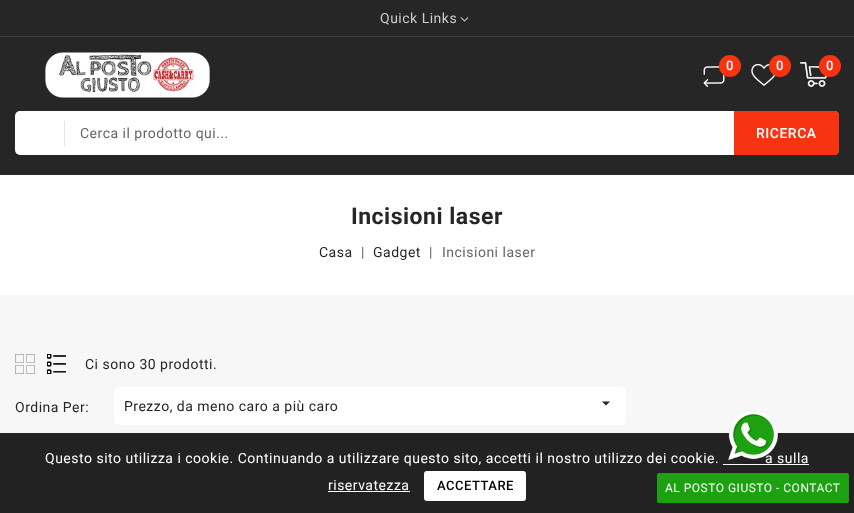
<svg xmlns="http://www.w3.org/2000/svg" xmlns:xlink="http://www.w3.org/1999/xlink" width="854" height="513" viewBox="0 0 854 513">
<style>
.cls-1{font:14px Roboto;letter-spacing:0.5px;fill:#cccccc}
.cls-2{font:500 13px Roboto;letter-spacing:0.5px;fill:#ffffff}
.cls-3{font:14px Roboto;letter-spacing:0.5px;fill:#666666}
.cls-4{font:500 14px Roboto;letter-spacing:0.5px;fill:#ffffff}
.cls-5{font:bold 23px Roboto;letter-spacing:0.5px;fill:#262626}
.cls-6{font:14px Roboto;letter-spacing:0.5px;fill:#262626}
.cls-7{font:14px Roboto;letter-spacing:0.5px;fill:#ffffff}
.cls-8{font:500 13px Roboto;letter-spacing:0.5px;fill:#000000}
.cls-9{font:12px Roboto;letter-spacing:0.5px;fill:#ffffff}
</style>
<rect width="100%" height="100%" fill="#f7f7f7"/>
<rect fill="#262626" x="0" y="0" width="854" height="175"/>
<rect fill="#3c3c3c" x="0" y="36" width="854" height="1"/>
<image xlink:href="image0.png" x="460" y="17" width="9" height="5"/>
<image xlink:href="image1.png" x="45" y="52" width="165" height="46"/>
<image xlink:href="image2.png" x="703" y="63" width="22" height="24"/>
<circle fill="#f73312" cx="730" cy="66" r="11"/>
<image xlink:href="image3.png" x="751" y="63" width="25" height="23"/>
<circle fill="#f73312" cx="780" cy="66" r="11"/>
<image xlink:href="image4.png" x="800" y="62" width="27" height="25"/>
<circle fill="#f73312" cx="830" cy="66" r="11"/>
<rect fill="#ffffff" x="15" y="111" width="824" height="44" rx="5"/>
<rect fill="#e5e5e5" x="64" y="121" width="1" height="25"/>
<path fill="#f73312" d="M734 111H834C837 111 839 113 839 116V150C839 153 837 155 834 155H734Z"/>
<rect fill="#ffffff" x="0" y="175" width="854" height="120"/>
<image xlink:href="image5.png" x="15" y="354" width="20" height="20"/>
<image xlink:href="image6.png" x="47" y="354" width="19" height="20"/>
<rect fill="#ffffff" x="114" y="387" width="512" height="38" rx="5"/>
<path fill="#262626" d="M602 401.5H610L606 405.5Z"/>
<rect fill="#222222" x="0" y="433" width="854" height="80"/>
<rect fill="#ffffff" x="723" y="464" width="86" height="1"/>
<rect fill="#ffffff" x="328" y="491" width="82" height="1"/>
<rect fill="#ffffff" x="424" y="471" width="102" height="30" rx="3"/>
<rect fill="#1da110" x="657" y="473" width="192" height="30" rx="2"/>
<text class="cls-1" x="380" y="23">Quick Links</text>
<text class="cls-2" x="726" y="70">0</text>
<text class="cls-2" x="776" y="70">0</text>
<text class="cls-2" x="826" y="70">0</text>
<text class="cls-3" x="80" y="138">Cerca il prodotto qui...</text>
<text class="cls-4" x="756" y="138">RICERCA</text>
<text class="cls-5" x="351" y="224">Incisioni laser</text>
<text class="cls-6" x="319" y="257">Casa</text>
<text class="cls-3" x="361" y="257">|</text>
<text class="cls-6" x="373" y="257">Gadget</text>
<text class="cls-3" x="429" y="257">|</text>
<text class="cls-3" x="442" y="257">Incisioni laser</text>
<text class="cls-6" x="85" y="369">Ci sono 30 prodotti.</text>
<text class="cls-6" x="15" y="412">Ordina Per:</text>
<text class="cls-6" x="124" y="411">Prezzo, da meno caro a più caro</text>
<text class="cls-7" x="45" y="463">Questo sito utilizza i cookie. Continuando a utilizzare questo sito, accetti il nostro utilizzo dei cookie.</text>
<text class="cls-7" x="765" y="463">a sulla</text>
<text class="cls-7" x="328" y="490">riservatezza</text>
<text class="cls-8" x="437" y="490">ACCETTARE</text>
<image xlink:href="image7.png" x="728" y="410" width="50" height="50"/>
<text class="cls-9" x="665" y="492">AL POSTO GIUSTO - CONTACT</text>
</svg>
